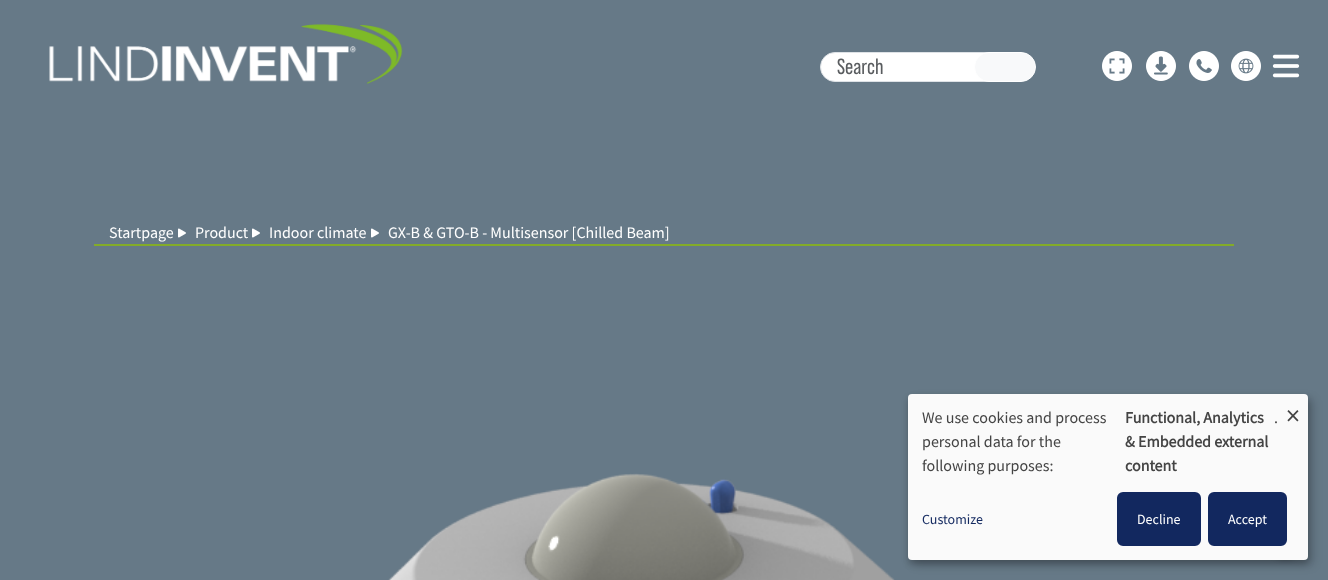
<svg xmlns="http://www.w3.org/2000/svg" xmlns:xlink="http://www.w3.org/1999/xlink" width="1328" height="580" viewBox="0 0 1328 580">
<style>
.cls-1{font:22px Bebas Neue;fill:#595c5f}
.cls-2{font:16px Source Sans Pro;fill:#ffffff}
.cls-3{font:16px Source Sans Pro;fill:#444444}
.cls-4{font:bold 16px Source Sans Pro;fill:#444444}
.cls-5{font:14px Source Sans Pro;fill:#12285f}
.cls-6{font:14px Source Sans Pro;fill:#ffffff}
.cls-7{font:28px Source Sans Pro;fill:#444444}
</style>
<rect width="100%" height="100%" fill="#667987"/>
<image xlink:href="image0.png" x="49" y="24" width="354" height="60"/>
<rect fill="#ffffff" stroke="#dee2e6" x="820.5" y="52.5" width="194" height="29" rx="14.5"/>
<rect fill="#f8f9fa" stroke="#ffffff" x="974.5" y="52.5" width="61" height="29" rx="14.5"/>
<image xlink:href="image1.png" x="1102" y="51" width="30" height="30"/>
<image xlink:href="image2.png" x="1146" y="51" width="30" height="30"/>
<image xlink:href="image3.png" x="1189" y="51" width="30" height="30"/>
<image xlink:href="image4.png" x="1231" y="51" width="30" height="30"/>
<image xlink:href="image5.png" x="1272" y="54" width="28" height="24"/>
<rect fill="#83ab29" x="94" y="244" width="1140" height="2"/>
<image xlink:href="image6.png" x="178" y="228" width="8" height="10"/>
<image xlink:href="image6.png" x="252" y="228" width="8" height="10"/>
<image xlink:href="image6.png" x="371" y="228" width="8" height="10"/>
<image xlink:href="image7.png" x="388" y="473" width="507" height="107"/>
<rect fill="#000000" fill-opacity="0.19" filter="blur(5px)" x="913" y="399" width="400" height="166" rx="4"/>
<rect fill="#000000" fill-opacity="0.2" filter="blur(3px)" x="908" y="398" width="400" height="166" rx="4"/>
<rect fill="#000000" fill-opacity="0.2" filter="blur(2.5px)" x="1268" y="525" width="35" height="35" rx="17.5"/>
<rect fill="#fafafa" x="908" y="394" width="400" height="166" rx="4"/>
<rect fill="#12285f" stroke="#12285f" stroke-width="3" x="1118.5" y="493.5" width="81" height="51" rx="4.5"/>
<rect fill="#12285f" stroke="#12285f" stroke-width="3" x="1209.5" y="493.5" width="76" height="51" rx="4.5"/>
<text class="cls-1" x="837" y="74">Search</text>
<text class="cls-2" x="109" y="238">Startpage</text>
<text class="cls-2" x="195" y="238">Product</text>
<text class="cls-2" x="269" y="238">Indoor climate</text>
<text class="cls-2" x="388" y="238">GX-B &amp; GTO-B - Multisensor [Chilled Beam]</text>
<text class="cls-3"><tspan x="922" y="423">We use cookies and process</tspan><tspan x="922" y="447">personal data for the</tspan><tspan x="922" y="471">following purposes:</tspan></text>
<text class="cls-4"><tspan x="1125" y="423">Functional, Analytics</tspan><tspan x="1125" y="447">&amp; Embedded external</tspan><tspan x="1125" y="471">content</tspan></text>
<text class="cls-3" x="1274" y="423">.</text>
<text class="cls-5" x="922" y="524">Customize</text>
<text class="cls-6" x="1137" y="524">Decline</text>
<text class="cls-6" x="1228" y="524">Accept</text>
<text class="cls-7" x="1286" y="425">×</text>
</svg>
